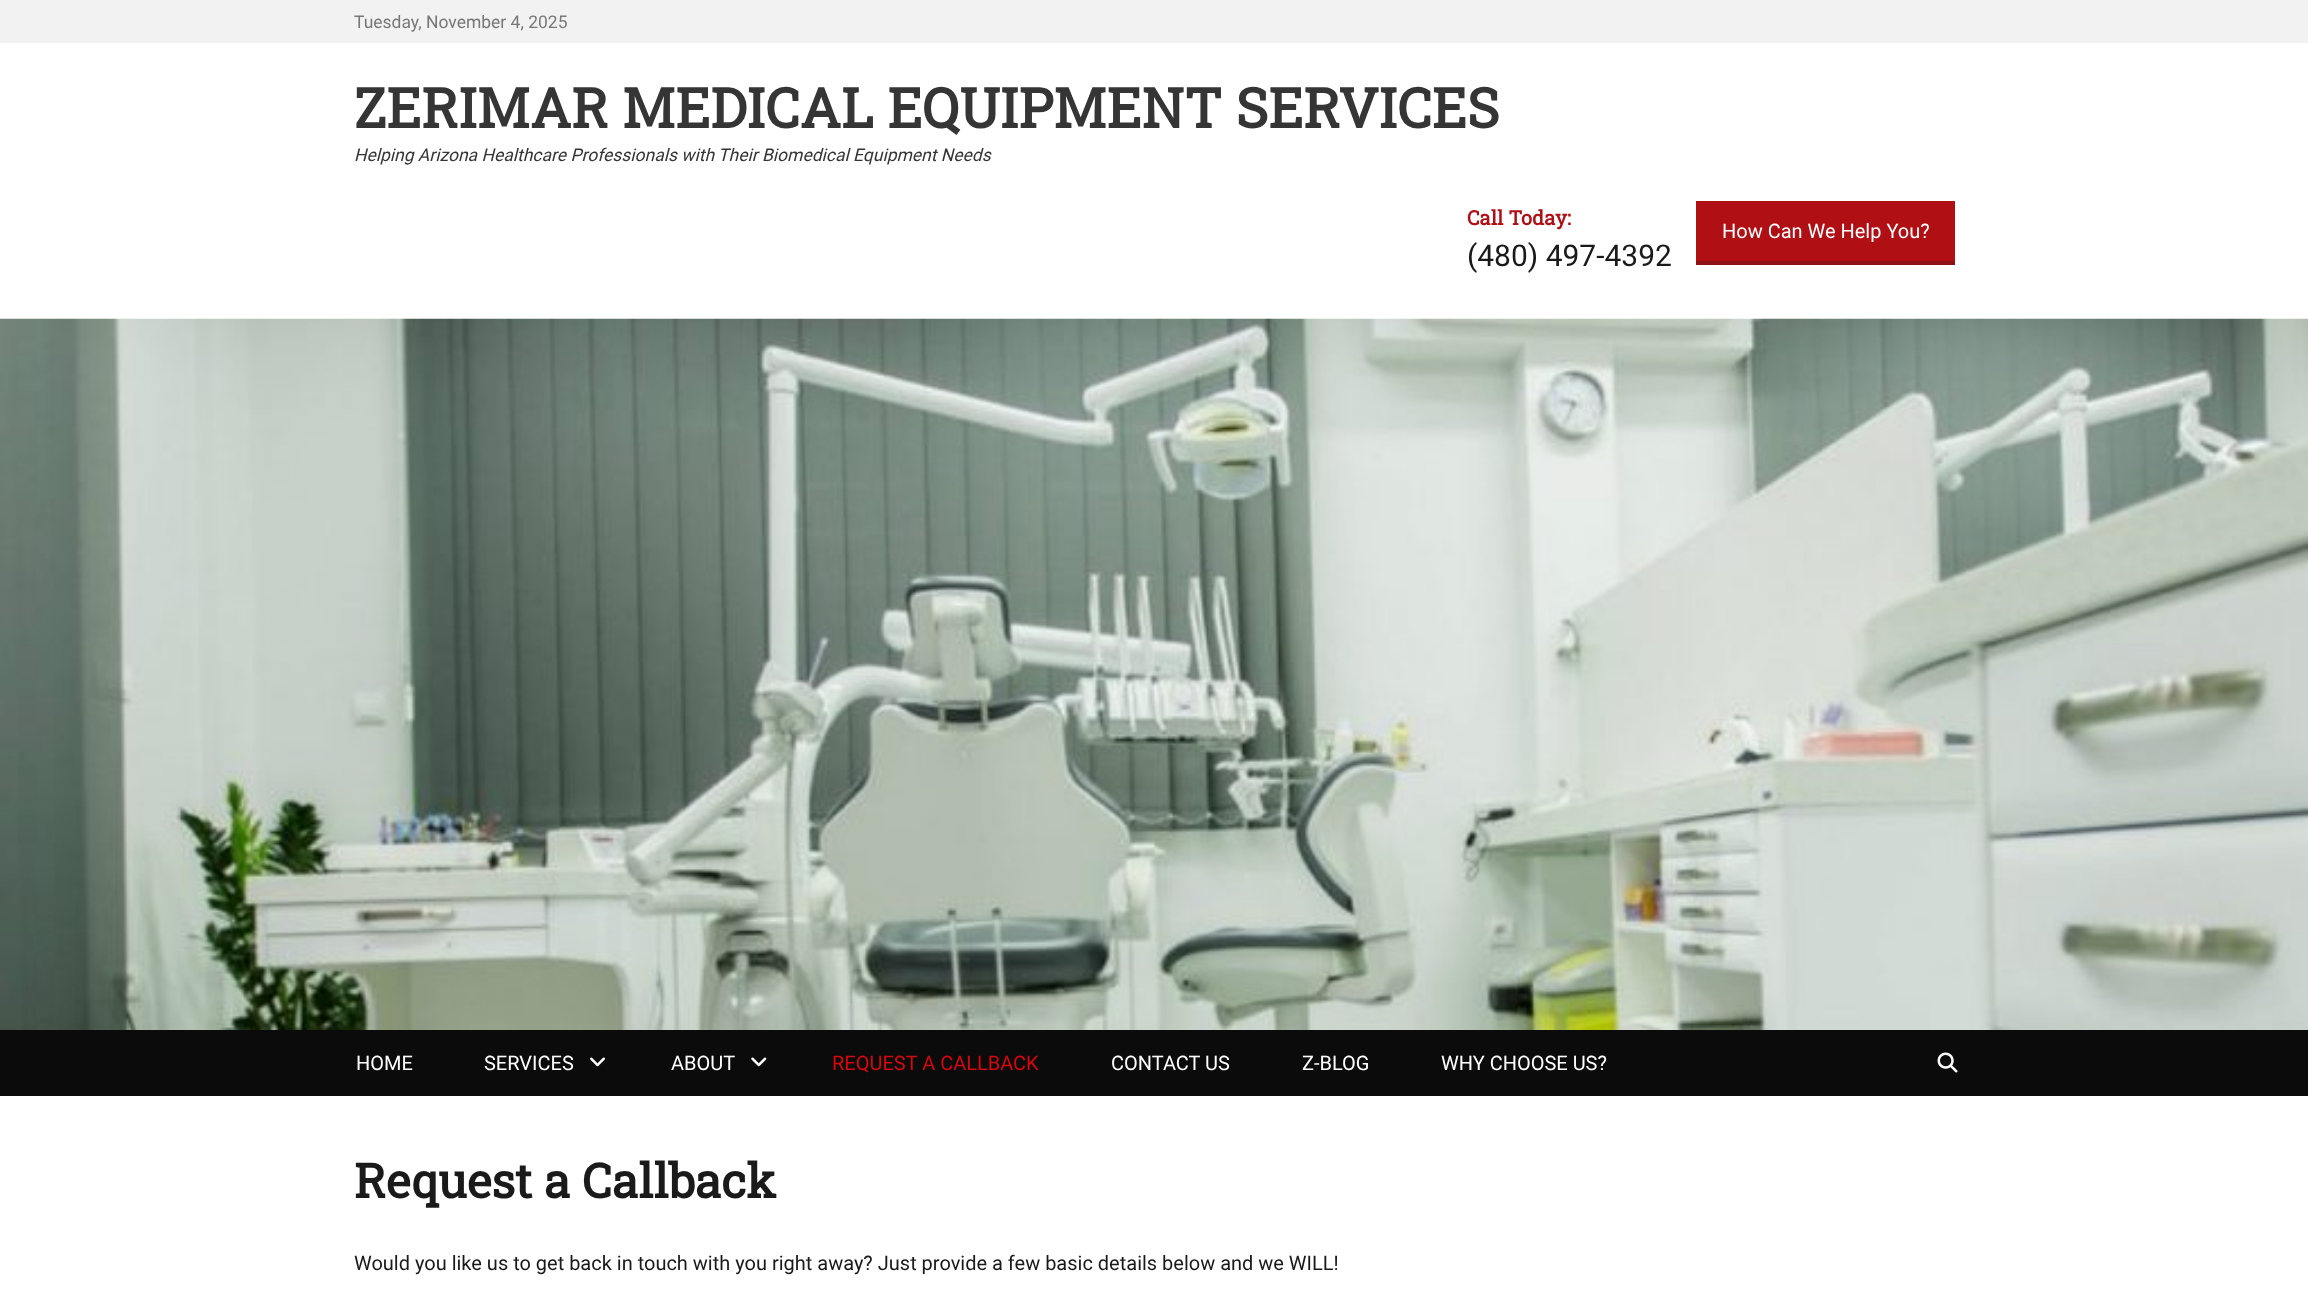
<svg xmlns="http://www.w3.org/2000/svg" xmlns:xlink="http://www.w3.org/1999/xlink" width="2308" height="1315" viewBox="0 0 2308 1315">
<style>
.cls-1{font:17.5px Roboto;fill:#777777}
.cls-2{font:bold 55px Roboto Slab;fill:#353535}
.cls-3{font:italic 17.5px Roboto;fill:#353535}
.cls-4{font:bold 20px Roboto Slab;fill:#b00f14}
.cls-5{font:30px Roboto;fill:#1a1a1a}
.cls-6{font:20px Roboto;fill:#ffffff}
.cls-7{font:20px Roboto;fill:#d7060d}
.cls-8{font:bold 47.5px Roboto Slab;fill:#1a1a1a}
.cls-9{font:20px Roboto;fill:#1a1a1a}
</style>
<rect width="100%" height="100%" fill="#ffffff"/>
<rect fill="#f2f2f2" x="0" y="0" width="2308" height="43"/>
<rect fill="#b00f14" x="1696" y="201" width="259" height="60"/>
<rect fill="#8f1014" x="1696" y="261" width="259" height="4"/>
<image xlink:href="image0.png" x="0" y="318" width="2308" height="712"/>
<rect fill="#0b0b0b" x="0" y="1030" width="2308" height="66"/>
<image xlink:href="image1.png" x="590" y="1057" width="15" height="10"/>
<image xlink:href="image2.png" x="751" y="1057" width="16" height="10"/>
<image xlink:href="image3.png" x="1937" y="1052" width="21" height="21"/>
<text class="cls-1" x="354" y="28">Tuesday, November 4, 2025</text>
<text class="cls-2" x="354" y="128">ZERIMAR MEDICAL EQUIPMENT SERVICES</text>
<text class="cls-3" x="354" y="161">Helping Arizona Healthcare Professionals with Their Biomedical Equipment Needs</text>
<text class="cls-4" x="1467" y="225">Call Today:</text>
<text class="cls-5" x="1467" y="266">(480) 497-4392</text>
<text class="cls-6" x="1722" y="238">How Can We Help You?</text>
<text class="cls-6" x="356" y="1070">HOME</text>
<text class="cls-6" x="484" y="1070">SERVICES</text>
<text class="cls-6" x="671" y="1070">ABOUT</text>
<text class="cls-7" x="832" y="1070">REQUEST A CALLBACK</text>
<text class="cls-6" x="1111" y="1070">CONTACT US</text>
<text class="cls-6" x="1302" y="1070">Z-BLOG</text>
<text class="cls-6" x="1441" y="1070">WHY CHOOSE US?</text>
<text class="cls-8" x="354" y="1198">Request a Callback</text>
<text class="cls-9" x="354" y="1270">Would you like us to get back in touch with you right away? Just provide a few basic details below and we WILL!</text>
</svg>
